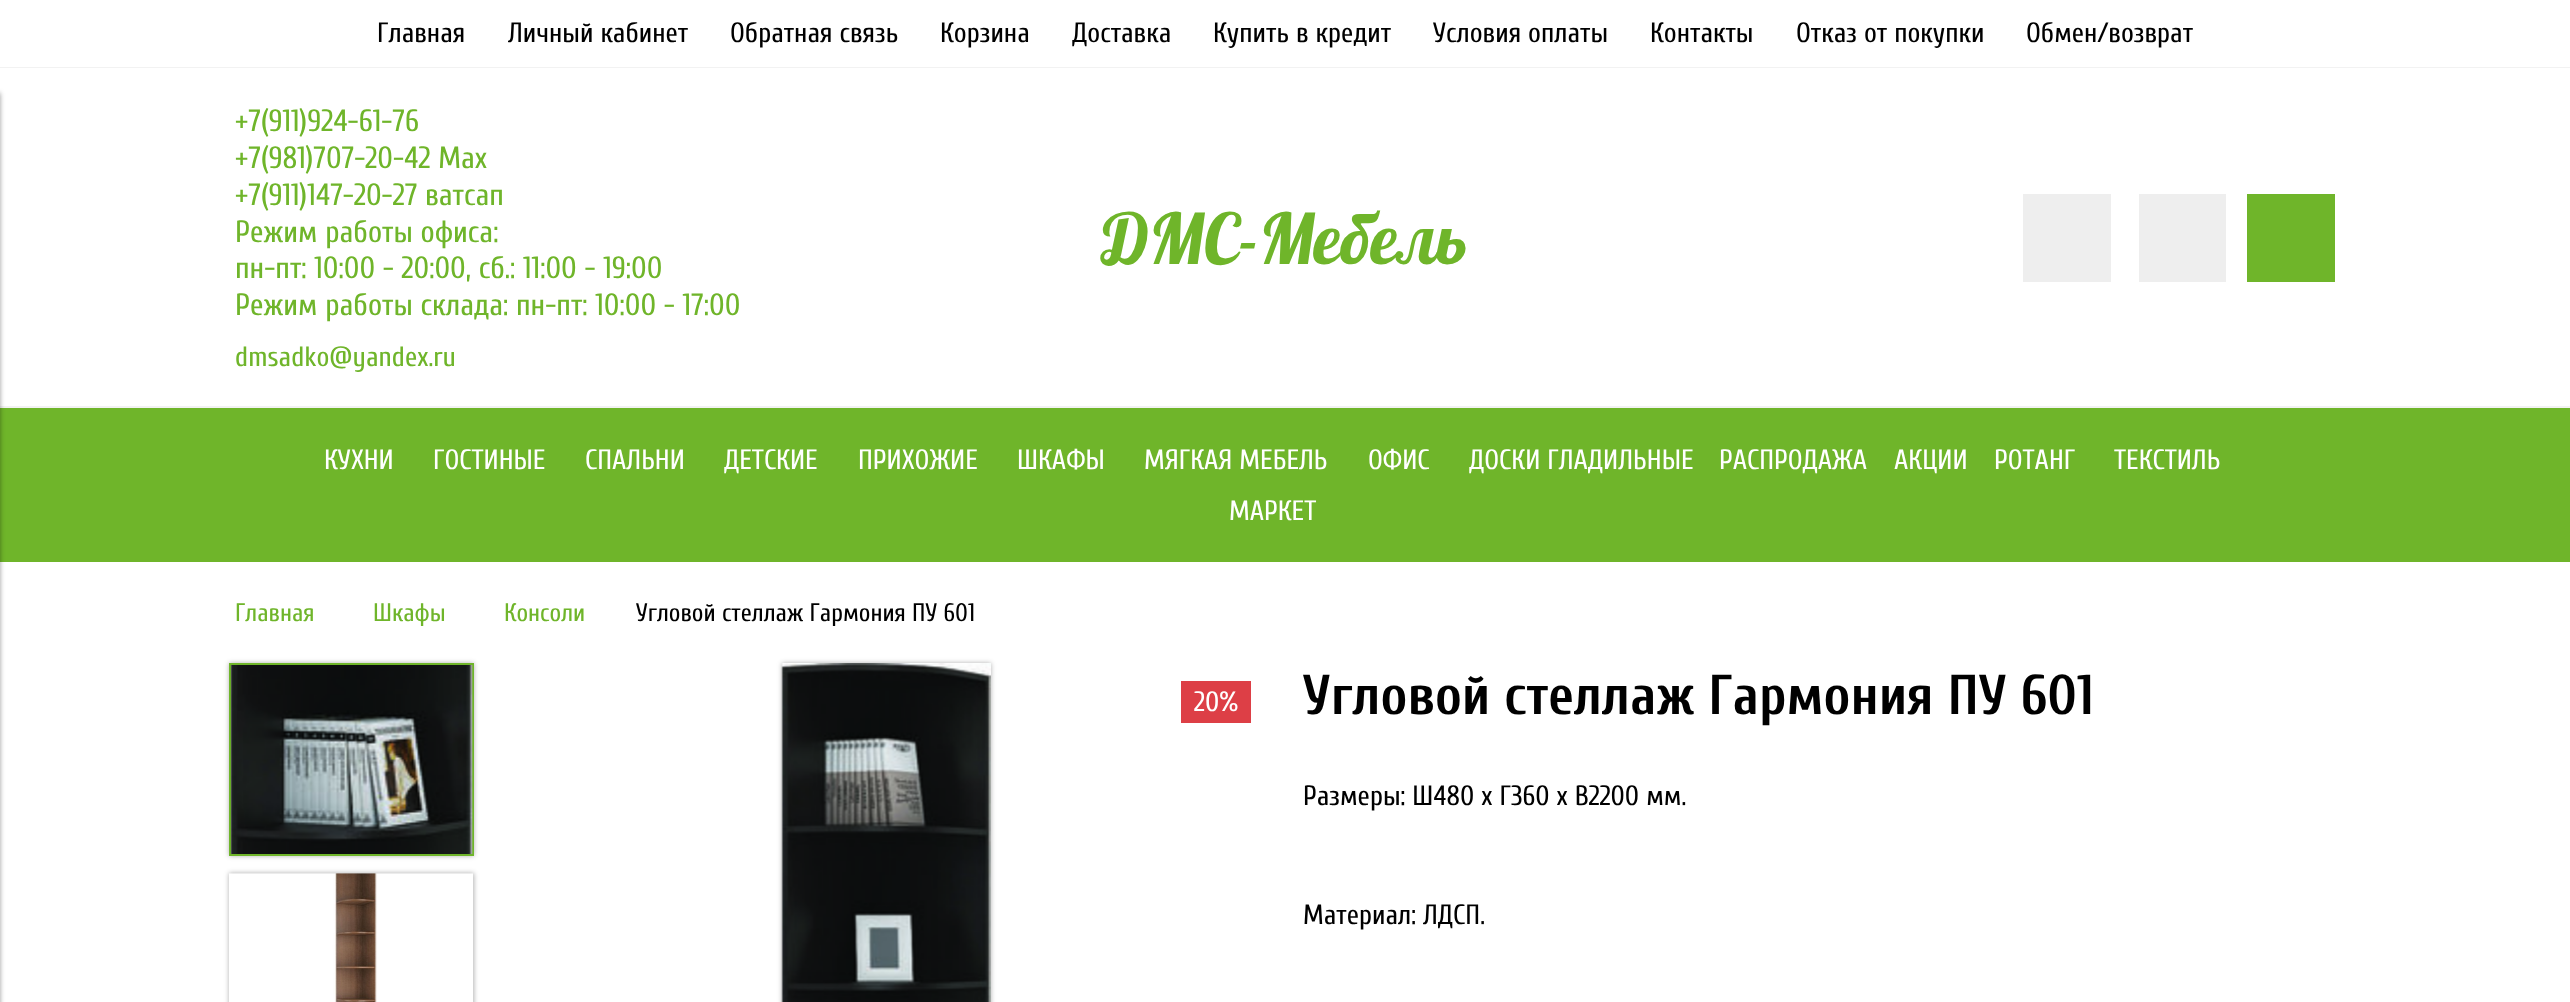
<svg xmlns="http://www.w3.org/2000/svg" xmlns:xlink="http://www.w3.org/1999/xlink" width="2570" height="1002" viewBox="0 0 2570 1002">
<style>*{font-kerning:none!important;font-variant-ligatures:none!important}</style>
<style>
.cls-1{font:28px Cuprum;fill:#000000}
.cls-2{font:30.75px Cuprum;fill:#6fb52a}
.cls-3{font:28px Cuprum;fill:#6fb52a}
.cls-4{font:70px Lobster;fill:#6fb52a}
.cls-5{font:28px Cuprum;fill:#ffffff}
.cls-6{font:25.25px Cuprum;fill:#6fb52a}
.cls-7{font:25.25px Cuprum;fill:#000000}
.cls-8{font:bold 56px Cuprum;fill:#000000}
</style>
<rect width="100%" height="100%" fill="#ffffff"/>
<rect fill="#f2f2f2" x="0" y="406" width="2570" height="2"/>
<rect fill="#6fb52a" x="0" y="408" width="2570" height="154"/>
<rect fill="#000000" fill-opacity="0.4" filter="blur(2.5px)" x="-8" y="93" width="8" height="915"/>
<rect fill="#f2f2f2" x="0" y="67" width="2570" height="1"/>
<rect fill="#eeeeee" x="2023" y="194" width="88" height="88"/>
<rect fill="#eeeeee" x="2139" y="194" width="87" height="88"/>
<rect fill="#6fb52a" x="2247" y="194" width="88" height="88"/>
<rect fill="#000000" fill-opacity="0.3" filter="blur(2.5px)" x="229" y="663" width="245" height="193"/>
<rect fill="none" stroke="#6fb52a" stroke-width="2" x="230" y="664" width="243" height="191"/>
<image xlink:href="image0.png" x="230" y="665" width="243" height="189"/>
<rect fill="#000000" fill-opacity="0.3" filter="blur(2.5px)" x="229" y="873" width="245" height="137"/>
<image xlink:href="image1.png" x="229" y="873" width="244" height="129"/>
<rect fill="#000000" fill-opacity="0.3" filter="blur(2.5px)" x="782" y="663" width="209" height="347"/>
<image xlink:href="image2.png" x="781" y="663" width="210" height="339"/>
<rect fill="#dd3f46" x="1181" y="681" width="70" height="42"/>
<text class="cls-1" x="377" y="42">Главная</text>
<text class="cls-1" x="508" y="42">Личный кабинет</text>
<text class="cls-1" x="730" y="42">Обратная связь</text>
<text class="cls-1" x="940" y="42">Корзина</text>
<text class="cls-1" x="1072" y="42">Доставка</text>
<text class="cls-1" x="1213" y="42">Купить в кредит</text>
<text class="cls-1" x="1433" y="42">Условия оплаты</text>
<text class="cls-1" x="1650" y="42">Контакты</text>
<text class="cls-1" x="1796" y="42">Отказ от покупки</text>
<text class="cls-1" x="2026" y="42">Обмен/возврат</text>
<text class="cls-2"><tspan x="235" y="131">+7(911)924-61-76</tspan><tspan x="235" y="168">+7(981)707-20-42 Max</tspan><tspan x="235" y="205">+7(911)147-20-27 ватсап</tspan><tspan x="235" y="242">Режим работы офиса:</tspan><tspan x="235" y="278">пн-пт: 10:00 - 20:00, сб.: 11:00 - 19:00</tspan><tspan x="235" y="315">Режим работы склада: пн-пт: 10:00 - 17:00</tspan></text>
<text class="cls-3" x="235" y="366">dmsadko@yandex.ru</text>
<text class="cls-4" x="1102" y="264">ДМС-Мебель</text>
<text class="cls-5" x="324" y="469">КУХНИ</text>
<text class="cls-5" x="433" y="469">ГОСТИНЫЕ</text>
<text class="cls-5" x="585" y="469">СПАЛЬНИ</text>
<text class="cls-5" x="724" y="469">ДЕТСКИЕ</text>
<text class="cls-5" x="858" y="469">ПРИХОЖИЕ</text>
<text class="cls-5" x="1017" y="469">ШКАФЫ</text>
<text class="cls-5" x="1144" y="469">МЯГКАЯ МЕБЕЛЬ</text>
<text class="cls-5" x="1368" y="469">ОФИС</text>
<text class="cls-5" x="1469" y="469">ДОСКИ ГЛАДИЛЬНЫЕ</text>
<text class="cls-5" x="1719" y="469">РАСПРОДАЖА</text>
<text class="cls-5" x="1894" y="469">АКЦИИ</text>
<text class="cls-5" x="1994" y="469">РОТАНГ</text>
<text class="cls-5" x="2114" y="469">ТЕКСТИЛЬ</text>
<text class="cls-5" x="1229" y="520">МАРКЕТ</text>
<text class="cls-6" x="235" y="621">Главная</text>
<text class="cls-6" x="373" y="621">Шкафы</text>
<text class="cls-6" x="504" y="621">Консоли</text>
<text class="cls-7" x="636" y="621">Угловой стеллаж Гармония ПУ 601</text>
<text class="cls-5" x="1194" y="711">20%</text>
<text class="cls-8" x="1303" y="714">Угловой стеллаж Гармония ПУ 601</text>
<text class="cls-1" x="1303" y="805">Размеры: Ш480 х Г360 х В2200 мм.</text>
<text class="cls-1" x="1303" y="924">Материал: ЛДСП.</text>
</svg>
